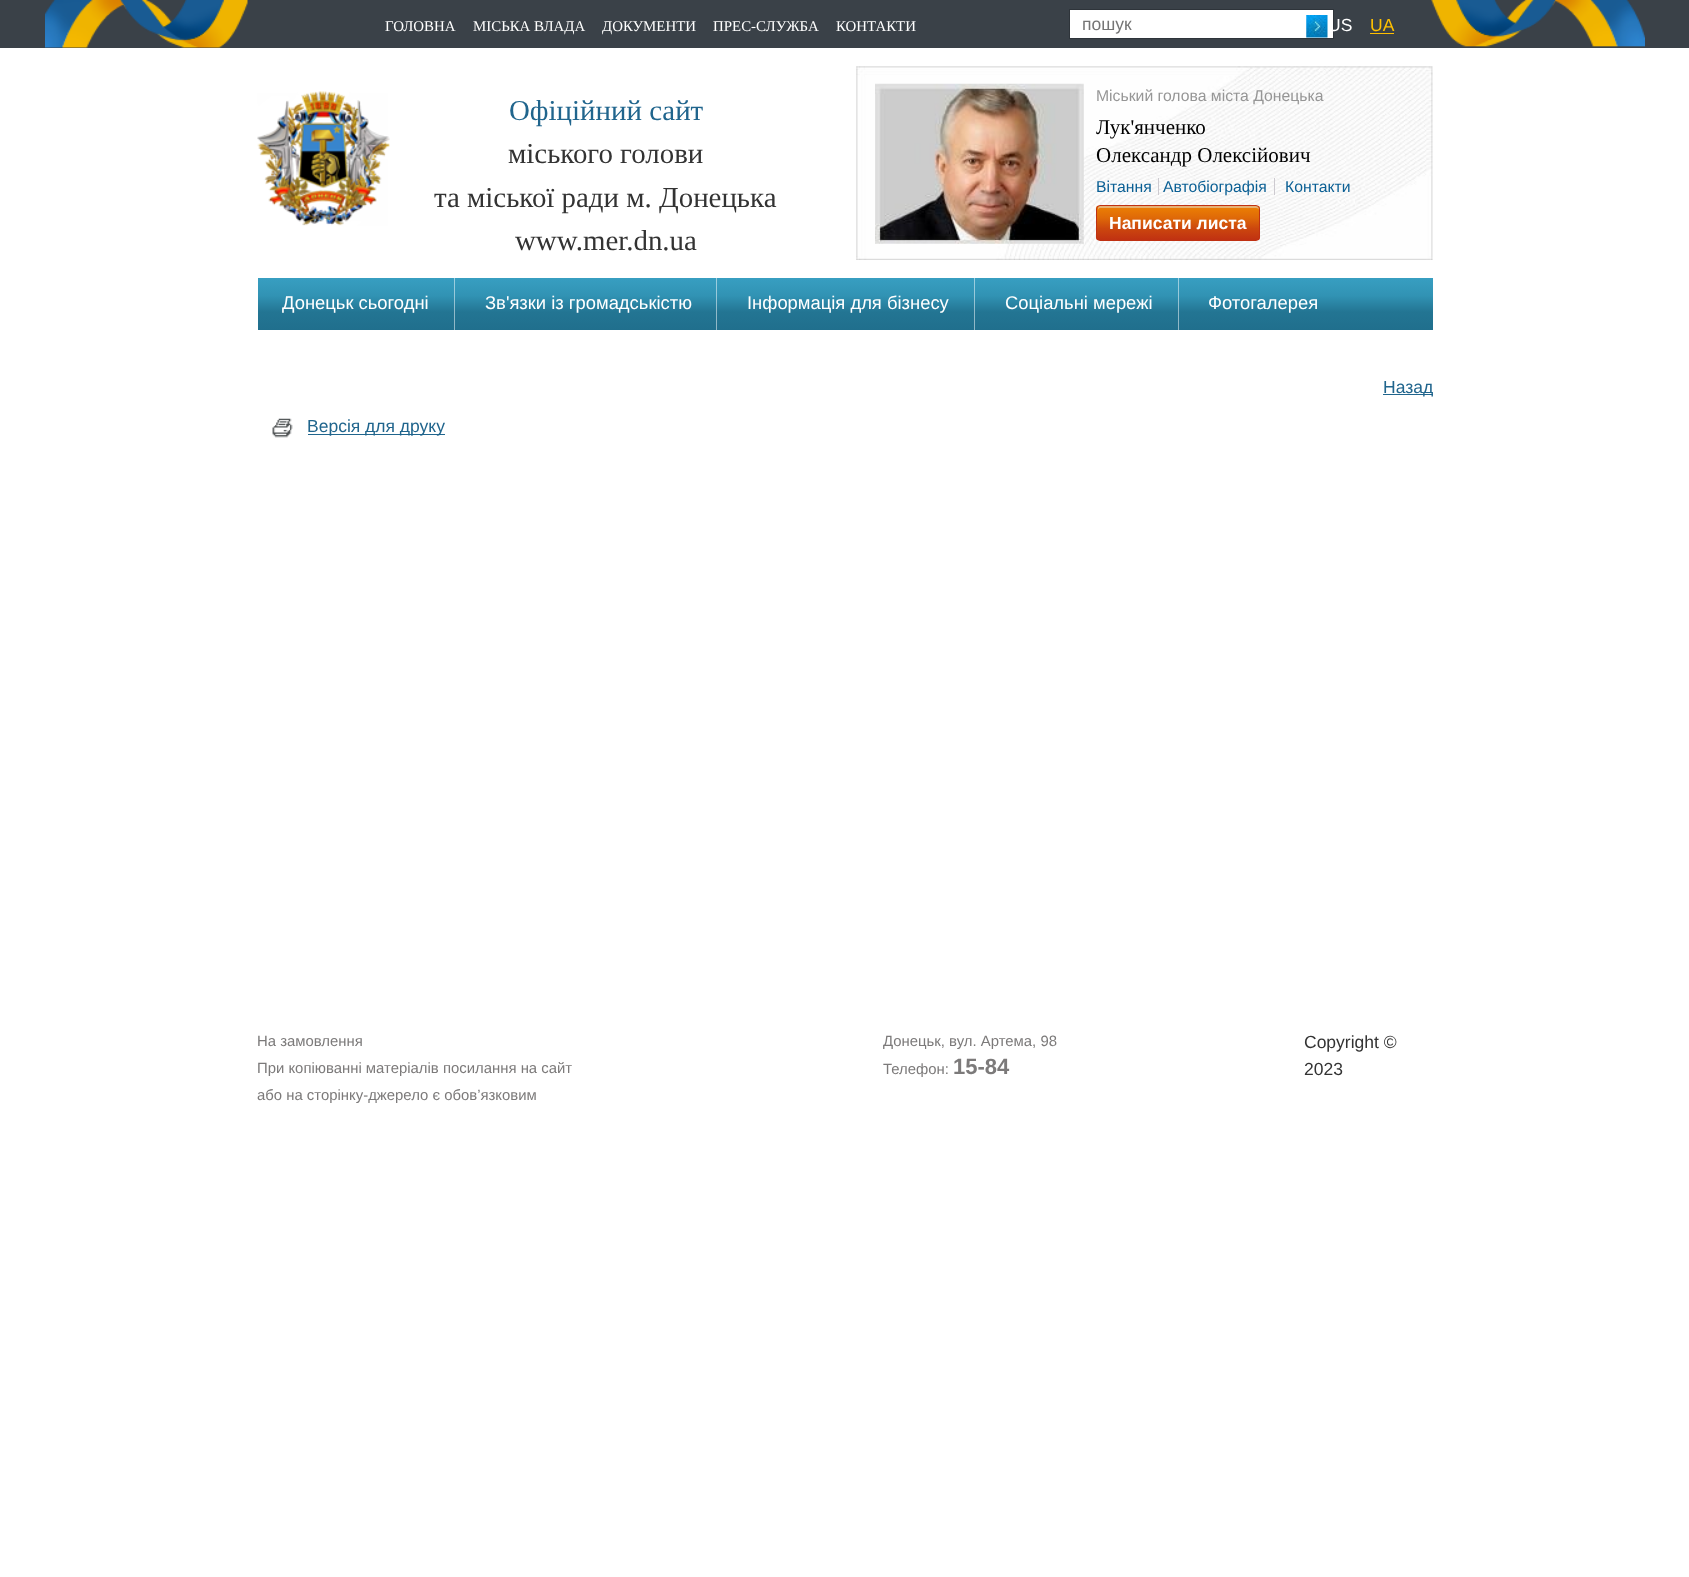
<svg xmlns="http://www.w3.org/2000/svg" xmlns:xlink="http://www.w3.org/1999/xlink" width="1689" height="1577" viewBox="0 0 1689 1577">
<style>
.cls-1{font:14.9px Liberation Serif;fill:#ffffff}
.cls-2{font:17.5px Liberation Sans;fill:#757575}
.cls-3{font:17.5px Liberation Sans;fill:#ffffff}
.cls-4{font:17.5px Liberation Sans;fill:#ffc001}
.cls-5{font:28.9px Liberation Serif;fill:#20658d}
.cls-6{font:28.9px Liberation Serif;fill:#333333}
.cls-7{font:15.75px Liberation Sans;fill:#969696}
.cls-8{font:21px Liberation Serif;fill:#000000}
.cls-9{font:15.75px Liberation Sans;fill:#0a5f94}
.cls-10{font:bold 17.5px Liberation Sans;fill:#ffffff}
.cls-11{font:18.4px Liberation Sans;fill:#ffffff}
.cls-12{font:17.5px Liberation Sans;fill:#20658d}
.cls-13{font:14.9px Liberation Sans;fill:#7c7a7a}
.cls-14{font:bold 22px Liberation Sans;fill:#7c7a7a}
.cls-15{font:17.5px Liberation Sans;fill:#333333}
</style>
<defs>
<clipPath id="clip1"><rect x="1096" y="205" width="164" height="36" rx="4"/></clipPath>
<linearGradient id="g1" gradientUnits="userSpaceOnUse" x1="1178" y1="206" x2="1178" y2="240"><stop offset="0" stop-color="#ed8103"/><stop offset="0.35" stop-color="#df6908"/><stop offset="0.66" stop-color="#cc470e"/><stop offset="1" stop-color="#c03112"/></linearGradient>
<linearGradient id="g2" gradientUnits="userSpaceOnUse" x1="845" y1="277" x2="845" y2="330"><stop offset="0" stop-color="#389fc2"/><stop offset="0.35" stop-color="#3193b4"/><stop offset="0.66" stop-color="#237593"/><stop offset="1" stop-color="#206f8d"/></linearGradient>
<linearGradient id="g3" gradientUnits="userSpaceOnUse" x1="845" y1="277" x2="845" y2="330"><stop offset="0" stop-color="#9ccfe1"/><stop offset="0.35" stop-color="#98c9da"/><stop offset="0.66" stop-color="#91bac9"/><stop offset="1" stop-color="#90b7c6"/></linearGradient>
</defs>
<rect width="100%" height="100%" fill="#ffffff"/>
<rect fill="#3a4148" x="0" y="0" width="1689" height="48"/>
<image xlink:href="image0.png" x="45" y="0" width="1600" height="48"/>
<rect fill="#ffffff" stroke="#2e343a" x="1069.5" y="9.5" width="264" height="29"/>
<image xlink:href="image1.png" x="1306" y="15" width="22" height="23"/>
<rect fill="#ffc001" x="1370" y="33" width="24" height="1"/>
<image xlink:href="image2.png" x="257" y="91" width="133" height="135"/>
<image xlink:href="image3.png" x="856" y="66" width="577" height="194"/>
<image xlink:href="image4.png" x="875" y="83" width="209" height="161"/>
<rect fill="#cdcad0" x="1158" y="178" width="1" height="17"/>
<rect fill="#cdcad0" x="1274" y="178" width="1" height="17"/>
<g clip-path="url(#clip1)">
<rect fill="url(#g1)" x="1096" y="206" width="164" height="34"/>
</g>
<path fill="#e1e1e1" fill-opacity="0.5" d="M1100 208H1256C1258 208 1259 209 1259 210C1259 208 1259 206 1256 206H1100C1098 206 1098 208 1098 210C1098 209 1099 208 1100 208Z"/>
<rect fill="none" stroke="#c03112" x="1096.5" y="205.5" width="163" height="35" rx="3.5"/>
<rect fill="url(#g2)" x="258" y="278" width="1175" height="52"/>
<rect fill="url(#g3)" x="1178" y="278" width="1" height="52"/>
<rect fill="url(#g3)" x="974" y="278" width="1" height="52"/>
<rect fill="url(#g3)" x="716" y="278" width="1" height="52"/>
<rect fill="url(#g3)" x="454" y="278" width="1" height="52"/>
<rect fill="#20658d" x="1383" y="394" width="50" height="1"/>
<image xlink:href="image5.png" x="272" y="418" width="21" height="20"/>
<rect fill="#20658d" x="308" y="434" width="137" height="1"/>
<text class="cls-1" x="385" y="31">ГОЛОВНА</text>
<text class="cls-1" x="473" y="31">МІСЬКА ВЛАДА</text>
<text class="cls-1" x="602" y="31">ДОКУМЕНТИ</text>
<text class="cls-1" x="713" y="31">ПРЕС-СЛУЖБА</text>
<text class="cls-1" x="836" y="31">КОНТАКТИ</text>
<text class="cls-2" x="1082" y="30">пошук</text>
<text class="cls-3" x="1328" y="31">US</text>
<text class="cls-4" x="1370" y="31">UA</text>
<text class="cls-5" x="509" y="120">Офіційний сайт</text>
<text class="cls-6" x="508" y="163">міського голови</text>
<text class="cls-6" x="434" y="207">та міської ради м. Донецька</text>
<text class="cls-6" x="515" y="250">www.mer.dn.ua</text>
<text class="cls-7" x="1096" y="101">Міський голова міста Донецька</text>
<text class="cls-8"><tspan x="1096" y="134">Лук'янченко</tspan><tspan x="1096" y="162">Олександр Олексійович</tspan></text>
<text class="cls-9" x="1096" y="192">Вітання</text>
<text class="cls-9" x="1163" y="192">Автобіографія</text>
<text class="cls-9" x="1285" y="192">Контакти</text>
<text class="cls-10" x="1109" y="229">Написати листа</text>
<text class="cls-11" x="282" y="309">Донецьк сьогодні</text>
<text class="cls-11" x="485" y="309">Зв'язки із громадськістю</text>
<text class="cls-11" x="747" y="309">Інформація для бізнесу</text>
<text class="cls-11" x="1005" y="309">Соціальні мережі</text>
<text class="cls-11" x="1208" y="309">Фотогалерея</text>
<text class="cls-12" x="1383" y="393">Назад</text>
<text class="cls-12" x="307" y="432">Версія для друку</text>
<text class="cls-13"><tspan x="257" y="1046">На замовлення</tspan><tspan x="257" y="1073">При копіюванні матеріалів посилання на сайт</tspan><tspan x="257" y="1100">або на сторінку-джерело є обов’язковим</tspan></text>
<text class="cls-13"><tspan x="883" y="1046">Донецьк, вул. Артема, 98</tspan><tspan x="883" y="1074">Телефон:</tspan></text>
<text class="cls-14" x="953" y="1074">15-84</text>
<text class="cls-15"><tspan x="1304" y="1048">Copyright ©</tspan><tspan x="1304" y="1075">2023</tspan></text>
</svg>
